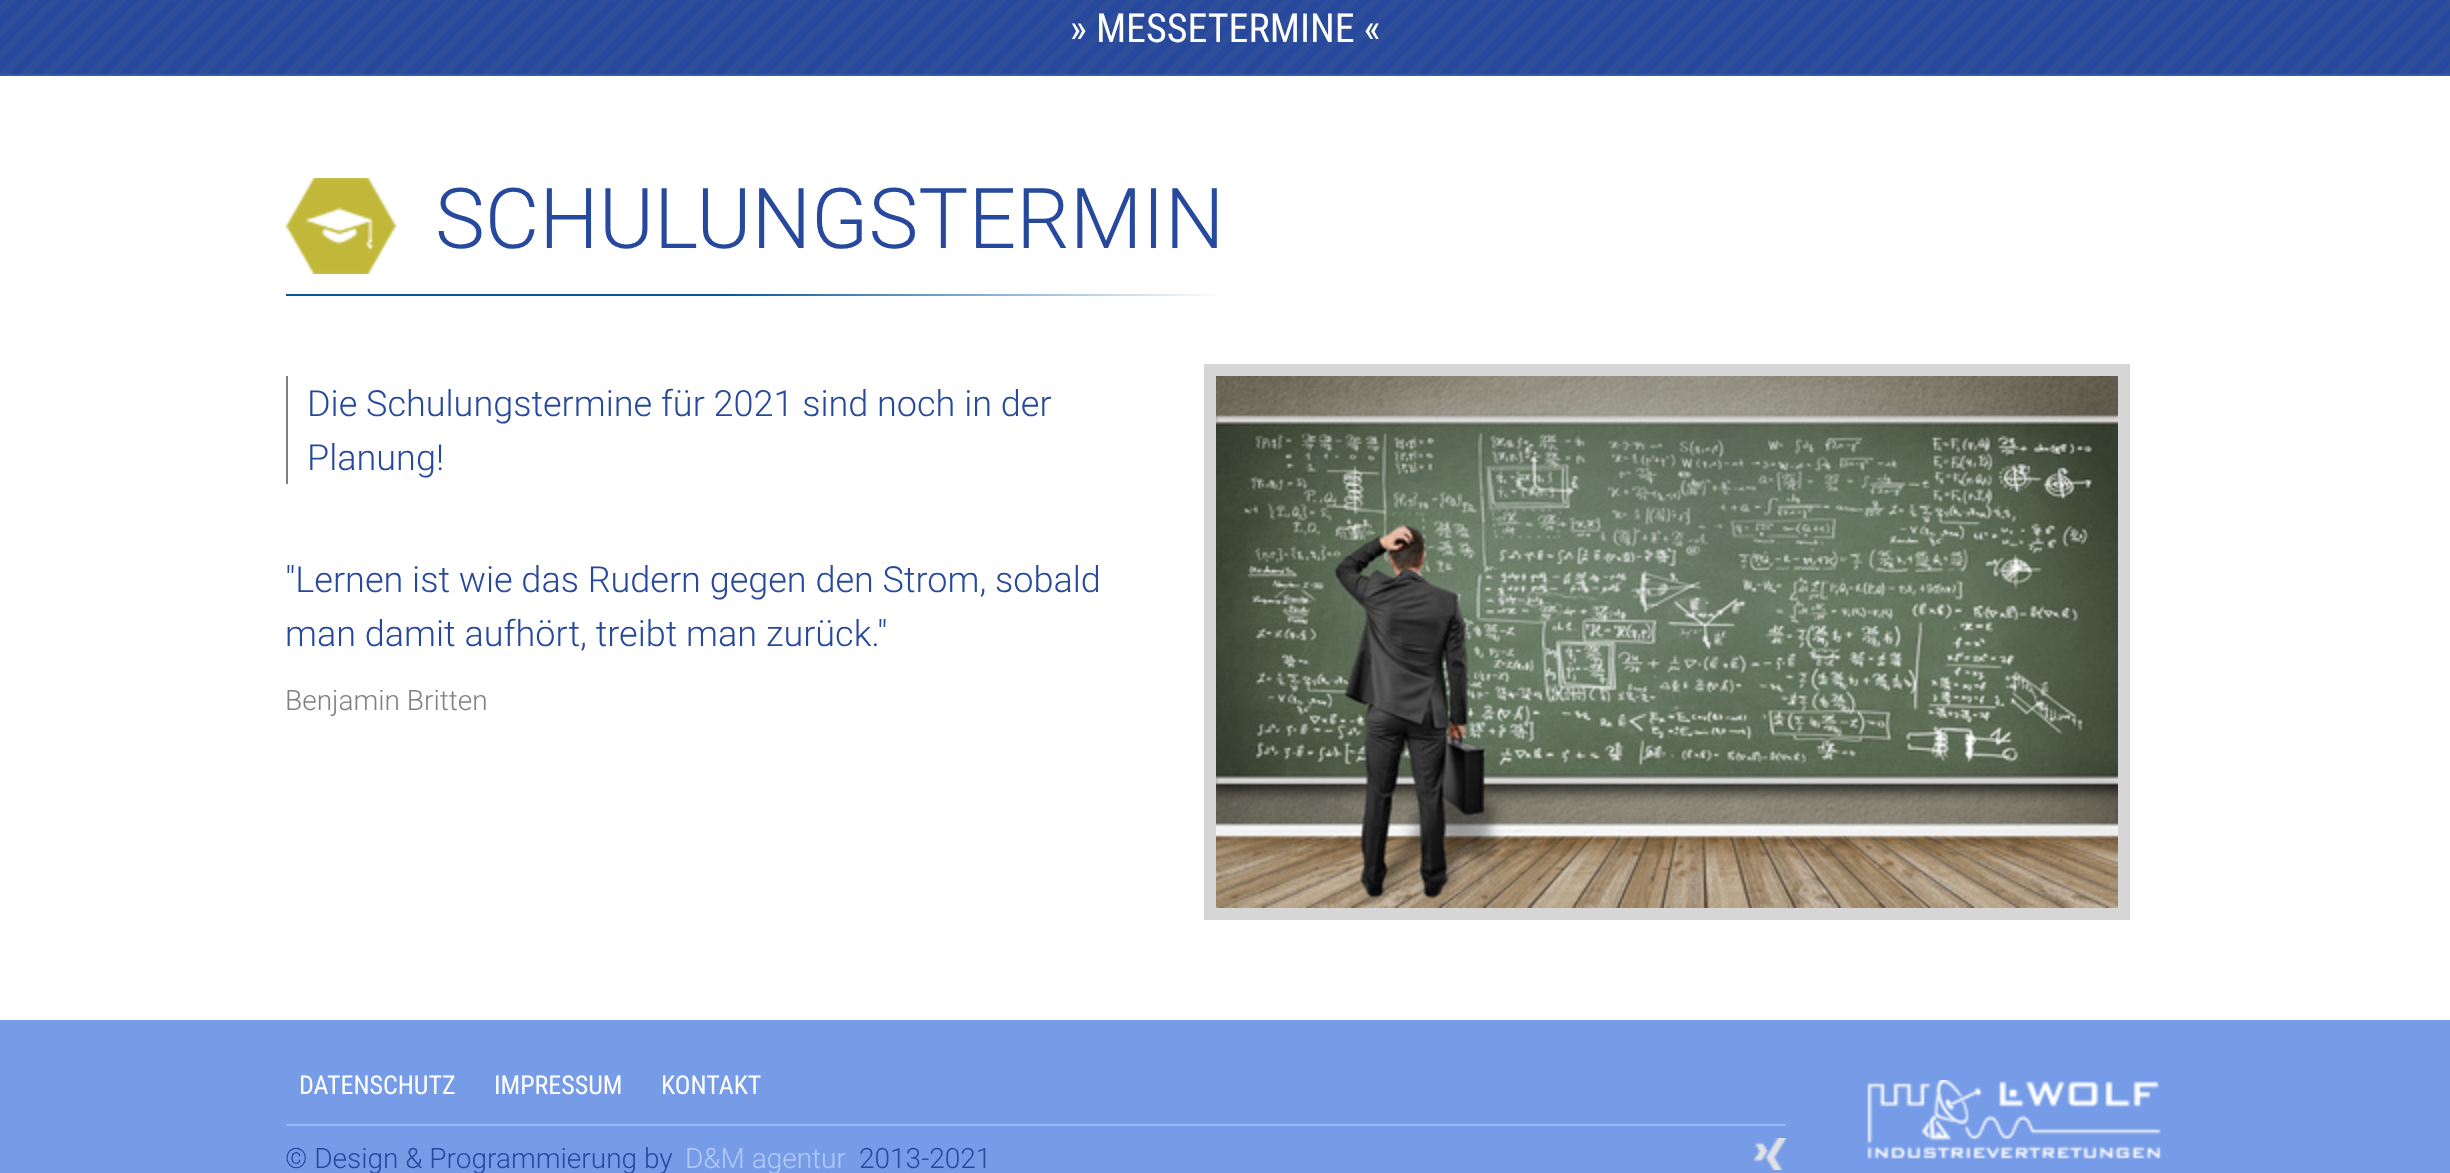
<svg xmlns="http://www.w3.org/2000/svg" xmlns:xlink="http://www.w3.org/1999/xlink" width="2450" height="1173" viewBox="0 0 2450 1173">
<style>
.cls-1{font:40px Roboto Condensed;fill:#ffffff}
.cls-2{font:300 84px Roboto;fill:#26489d}
.cls-3{font:300 36px Roboto;fill:#26489d}
.cls-4{font:300 28px Roboto;fill:#808080}
.cls-5{font:26px Roboto Condensed;fill:#ffffff}
.cls-6{font:300 28px Roboto;fill:#26489d}
.cls-7{font:300 28px Roboto;fill:#b5caf3}
</style>
<defs>
<linearGradient id="g1" gradientUnits="userSpaceOnUse" x1="286" y1="295" x2="1226" y2="295"><stop offset="0" stop-color="#03569a"/><stop offset="0.46" stop-color="#03569a"/><stop offset="1" stop-color="#ffffff"/></linearGradient>
</defs>
<rect width="100%" height="100%" fill="#ffffff"/>
<image xlink:href="image0.png" x="0" y="0" width="2450" height="74"/>
<rect fill="#325ba8" x="0" y="74" width="2450" height="2"/>
<image xlink:href="image1.png" x="286" y="178" width="110" height="96"/>
<rect fill="url(#g1)" x="286" y="294" width="940" height="2"/>
<rect fill="#808080" x="286" y="376" width="2" height="108"/>
<image xlink:href="image2.png" x="1216" y="376" width="902" height="532"/>
<rect fill="none" stroke="#d6d6d6" stroke-width="12" x="1210" y="370" width="914" height="544"/>
<rect fill="#769ce8" x="0" y="1020" width="2450" height="153"/>
<rect fill="#8fbcf3" x="286" y="1124" width="1500" height="2"/>
<image xlink:href="image3.png" x="1754" y="1138" width="32" height="32"/>
<image xlink:href="image4.png" x="1867" y="1080" width="294" height="79"/>
<text class="cls-1" x="1070" y="42">» MESSETERMINE «</text>
<text class="cls-2" x="435" y="248">SCHULUNGSTERMIN</text>
<text class="cls-3"><tspan x="307" y="416">Die Schulungstermine für 2021 sind noch in der</tspan><tspan x="307" y="470">Planung!</tspan></text>
<text class="cls-3"><tspan x="285" y="592">"Lernen ist wie das Rudern gegen den Strom, sobald</tspan><tspan x="285" y="646">man damit aufhört, treibt man zurück."</tspan></text>
<text class="cls-4" x="285" y="710">Benjamin Britten</text>
<text class="cls-5" x="299" y="1094">DATENSCHUTZ</text>
<text class="cls-5" x="494" y="1094">IMPRESSUM</text>
<text class="cls-5" x="661" y="1094">KONTAKT</text>
<text class="cls-6" x="285" y="1168">© Design &amp; Programmierung by</text>
<text class="cls-7" x="685" y="1168">D&amp;M agentur</text>
<text class="cls-6" x="859" y="1168">2013-2021</text>
</svg>
